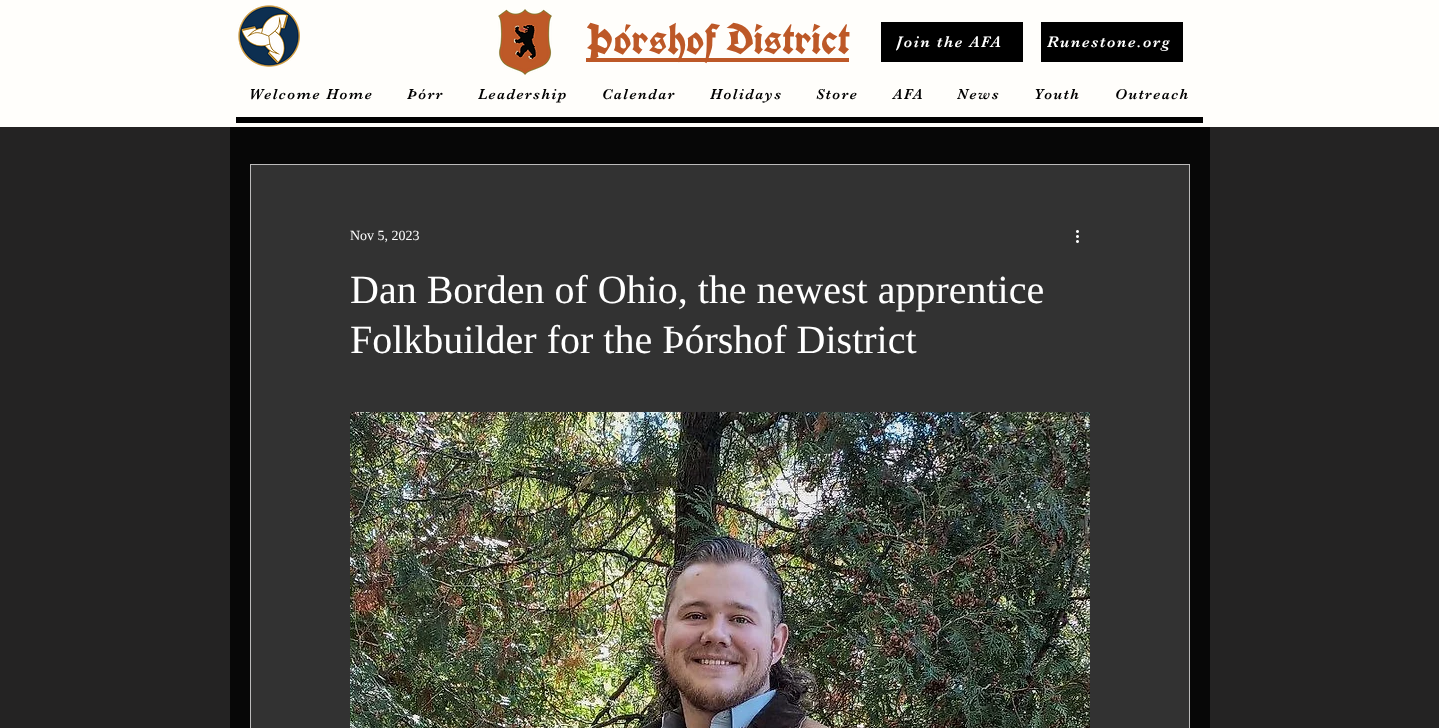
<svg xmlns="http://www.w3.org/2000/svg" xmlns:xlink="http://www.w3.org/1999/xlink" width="1439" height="728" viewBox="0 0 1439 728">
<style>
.cls-1{font:bold 43px UnifrakturCook;fill:#bd5827}
.cls-2{font:16px 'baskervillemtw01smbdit';letter-spacing:1.6px;fill:#ffffff}
.cls-3{font:15px 'baskervillemtw01smbdit';letter-spacing:1.5px;fill:#000000}
.cls-4{font:14px Liberation Serif;fill:#ffffff}
.cls-5{font:40px Liberation Serif;fill:#ffffff}
</style>
<defs>
<clipPath id="clip1"><rect x="896" y="33" width="107" height="18"/></clipPath>
</defs>
<rect width="100%" height="100%" fill="#242323"/>
<rect fill="#fffefb" x="0" y="0" width="1439" height="127"/>
<image xlink:href="image0.png" x="238" y="5" width="62" height="62"/>
<image xlink:href="image1.png" x="498" y="9" width="54" height="66"/>
<rect fill="#bd5827" x="586" y="58" width="263" height="4"/>
<rect fill="#000000" x="881" y="22" width="142" height="40"/>
<rect fill="#000000" x="1041" y="22" width="142" height="40"/>
<rect fill="#000000" x="236" y="117" width="967" height="6"/>
<rect fill="#070707" x="230" y="127" width="980" height="601"/>
<rect fill="#323232" stroke="#bcbbbb" x="250.5" y="164.5" width="939" height="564"/>
<image xlink:href="image2.png" x="1076" y="230" width="3" height="13"/>
<image xlink:href="image3.png" x="350" y="412" width="740" height="316"/>
<text class="cls-1" x="586" y="55">Þórshof District</text>
<g clip-path="url(#clip1)">
<text class="cls-2" x="896" y="47">Join the AFA</text>
</g>
<text class="cls-2" x="1047" y="47">Runestone.org</text>
<text class="cls-3" x="249" y="99">Welcome Home</text>
<text class="cls-3" x="407" y="99">Þórr</text>
<text class="cls-3" x="478" y="99">Leadership</text>
<text class="cls-3" x="602" y="99">Calendar</text>
<text class="cls-3" x="710" y="99">Holidays</text>
<text class="cls-3" x="816" y="99">Store</text>
<text class="cls-3" x="893" y="99">AFA</text>
<text class="cls-3" x="957" y="99">News</text>
<text class="cls-3" x="1034" y="99">Youth</text>
<text class="cls-3" x="1115" y="99">Outreach</text>
<text class="cls-4" x="350" y="240">Nov 5, 2023</text>
<text class="cls-5"><tspan x="350" y="303">Dan Borden of Ohio, the newest apprentice</tspan><tspan x="350" y="353">Folkbuilder for the Þórshof District</tspan></text>
</svg>
